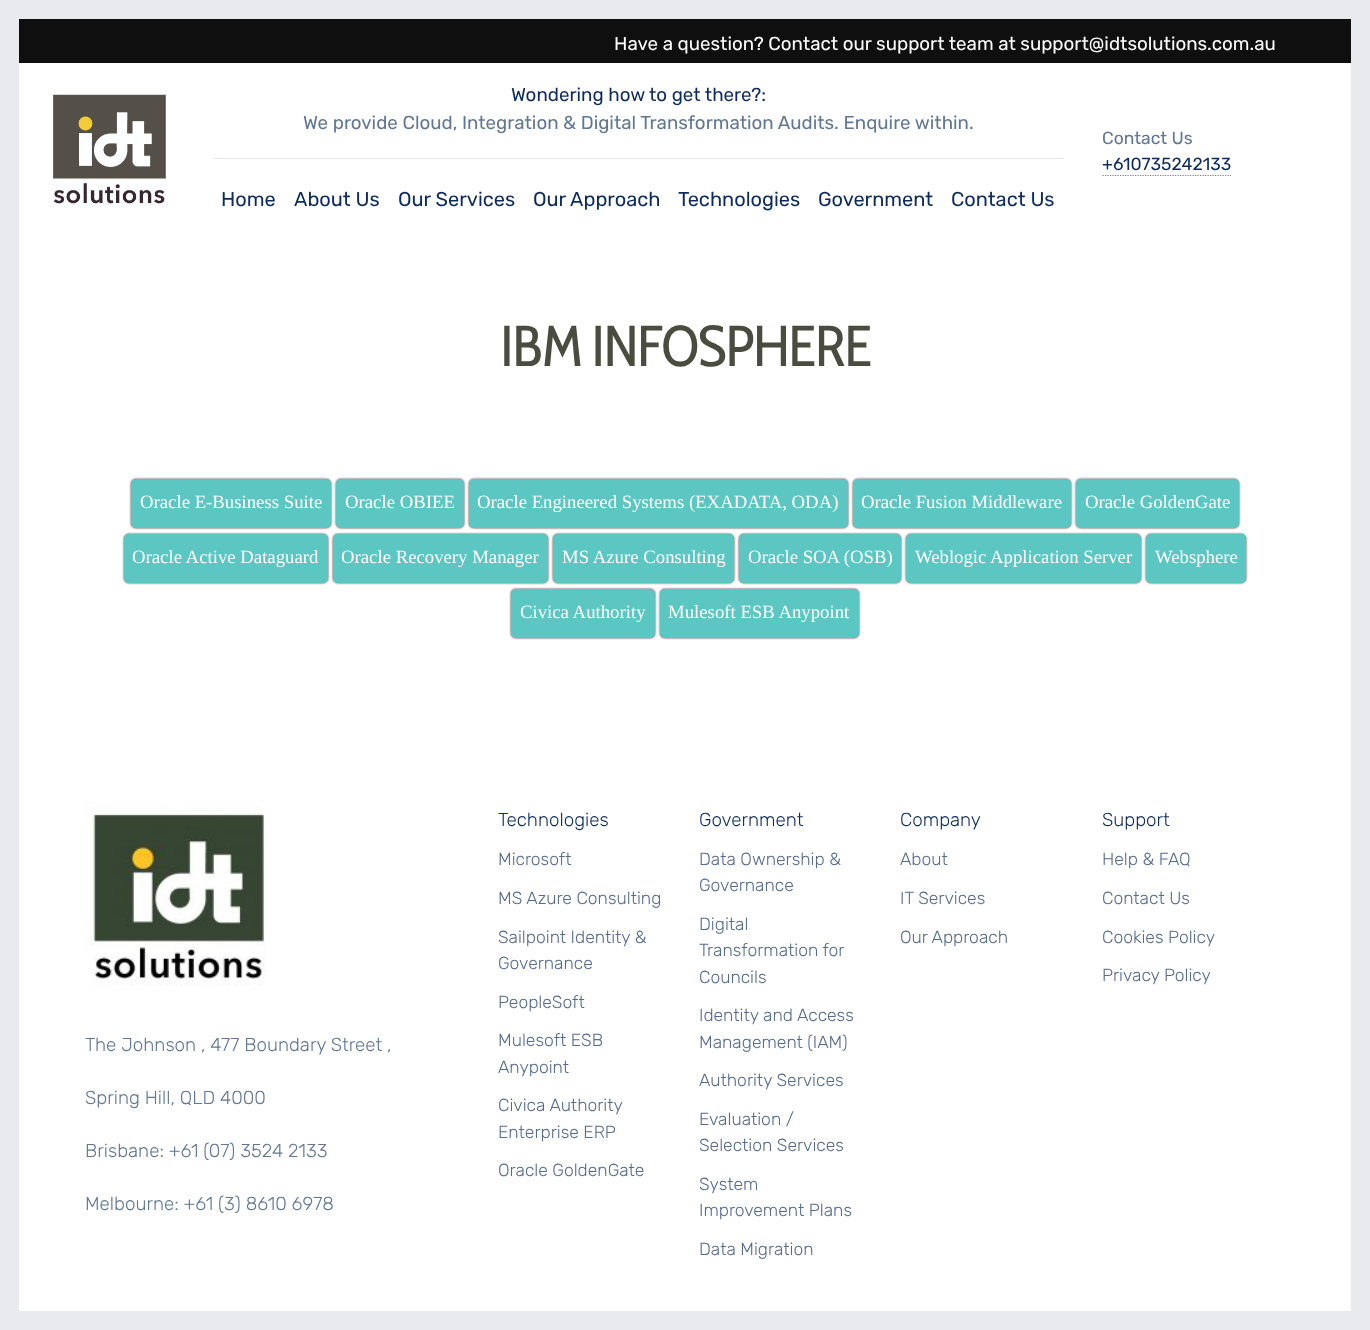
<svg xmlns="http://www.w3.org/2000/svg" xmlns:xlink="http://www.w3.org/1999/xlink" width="1370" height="1330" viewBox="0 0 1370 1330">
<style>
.cls-1{font:18.75px Rubik;fill:#ffffff}
.cls-2{font:18.75px Rubik;fill:#0e2b5c}
.cls-3{font:18.75px Rubik;fill:#627792}
.cls-4{font:20px Rubik;fill:#0e2b5c}
.cls-5{font:17.5px Rubik;fill:#627792}
.cls-6{font:17.5px Rubik;fill:#0e2b5c}
.cls-7{font:57.5px Cabin Condensed;letter-spacing:-1.25px;fill:#4b4c40}
.cls-8{font:18.75px Liberation Serif;fill:#ffffff}
.cls-9{font:300 18.75px Rubik;fill:#627792}
.cls-10{font:300 18.75px Rubik;fill:#0e2b5c}
.cls-11{font:300 17.5px Rubik;fill:#566b8d}
</style>
<rect width="100%" height="100%" fill="#ffffff"/>
<rect fill="#e9eaee" x="0" y="0" width="19" height="1330"/>
<rect fill="#e9eaee" x="19" y="0" width="1332" height="19"/>
<rect fill="#e9eaee" x="1351" y="0" width="19" height="1311"/>
<rect fill="#e9eaee" x="19" y="1311" width="1351" height="19"/>
<rect fill="#0f0f0f" x="19" y="19" width="1332" height="44"/>
<image xlink:href="image0.png" x="53" y="94" width="113" height="110"/>
<rect fill="#e7ebef" x="213" y="158" width="851" height="1"/>
<path fill="none" stroke="#808080" stroke-width="1.2" stroke-dasharray="1.25 1.25" d="M1102.5 175.5H1231"/>
<rect fill="#333333" filter="blur(1px)" x="131" y="479" width="200" height="49" rx="5"/>
<rect fill="#5cc7c2" stroke="#5cc7c2" stroke-width="3" x="132.5" y="480.5" width="197" height="46" rx="3.5"/>
<rect fill="#333333" filter="blur(1px)" x="336" y="479" width="128" height="49" rx="5"/>
<rect fill="#5cc7c2" stroke="#5cc7c2" stroke-width="3" x="337.5" y="480.5" width="125" height="46" rx="3.5"/>
<rect fill="#333333" filter="blur(1px)" x="469" y="479" width="379" height="49" rx="5"/>
<rect fill="#5cc7c2" stroke="#5cc7c2" stroke-width="3" x="470.5" y="480.5" width="376" height="46" rx="3.5"/>
<rect fill="#333333" filter="blur(1px)" x="853" y="479" width="218" height="49" rx="5"/>
<rect fill="#5cc7c2" stroke="#5cc7c2" stroke-width="3" x="854.5" y="480.5" width="215" height="46" rx="3.5"/>
<rect fill="#333333" filter="blur(1px)" x="1076" y="479" width="163" height="49" rx="5"/>
<rect fill="#5cc7c2" stroke="#5cc7c2" stroke-width="3" x="1077.5" y="480.5" width="160" height="46" rx="3.5"/>
<rect fill="#333333" filter="blur(1px)" x="124" y="534" width="204" height="49" rx="5"/>
<rect fill="#5cc7c2" stroke="#5cc7c2" stroke-width="3" x="125.5" y="535.5" width="201" height="46" rx="3.5"/>
<rect fill="#333333" filter="blur(1px)" x="333" y="534" width="215" height="49" rx="5"/>
<rect fill="#5cc7c2" stroke="#5cc7c2" stroke-width="3" x="334.5" y="535.5" width="212" height="46" rx="3.5"/>
<rect fill="#333333" filter="blur(1px)" x="553" y="534" width="181" height="49" rx="5"/>
<rect fill="#5cc7c2" stroke="#5cc7c2" stroke-width="3" x="554.5" y="535.5" width="178" height="46" rx="3.5"/>
<rect fill="#333333" filter="blur(1px)" x="739" y="534" width="162" height="49" rx="5"/>
<rect fill="#5cc7c2" stroke="#5cc7c2" stroke-width="3" x="740.5" y="535.5" width="159" height="46" rx="3.5"/>
<rect fill="#333333" filter="blur(1px)" x="906" y="534" width="235" height="49" rx="5"/>
<rect fill="#5cc7c2" stroke="#5cc7c2" stroke-width="3" x="907.5" y="535.5" width="232" height="46" rx="3.5"/>
<rect fill="#333333" filter="blur(1px)" x="1146" y="534" width="100" height="49" rx="5"/>
<rect fill="#5cc7c2" stroke="#5cc7c2" stroke-width="3" x="1147.5" y="535.5" width="97" height="46" rx="3.5"/>
<rect fill="#333333" filter="blur(1px)" x="511" y="589" width="144" height="49" rx="5"/>
<rect fill="#5cc7c2" stroke="#5cc7c2" stroke-width="3" x="512.5" y="590.5" width="141" height="46" rx="3.5"/>
<rect fill="#333333" filter="blur(1px)" x="660" y="589" width="199" height="49" rx="5"/>
<rect fill="#5cc7c2" stroke="#5cc7c2" stroke-width="3" x="661.5" y="590.5" width="196" height="46" rx="3.5"/>
<image xlink:href="image1.png" x="85" y="806" width="181" height="180"/>
<text class="cls-1" x="614" y="50">Have a question? Contact our support team at support@idtsolutions.com.au</text>
<text class="cls-2" x="511" y="101">Wondering how to get there?:</text>
<text class="cls-3" x="303" y="129">We provide Cloud, Integration &amp; Digital Transformation Audits. Enquire within.</text>
<text class="cls-4" x="221" y="206">Home</text>
<text class="cls-4" x="294" y="206">About Us</text>
<text class="cls-4" x="398" y="206">Our Services</text>
<text class="cls-4" x="533" y="206">Our Approach</text>
<text class="cls-4" x="678" y="206">Technologies</text>
<text class="cls-4" x="818" y="206">Government</text>
<text class="cls-4" x="951" y="206">Contact Us</text>
<text class="cls-5" x="1102" y="144">Contact Us</text>
<text class="cls-6" x="1102" y="170">+610735242133</text>
<text class="cls-7" x="500" y="366">IBM INFOSPHERE</text>
<text class="cls-8" x="140" y="508">Oracle E-Business Suite</text>
<text class="cls-8" x="345" y="508">Oracle OBIEE</text>
<text class="cls-8" x="477" y="508">Oracle Engineered Systems (EXADATA, ODA)</text>
<text class="cls-8" x="861" y="508">Oracle Fusion Middleware</text>
<text class="cls-8" x="1085" y="508">Oracle GoldenGate</text>
<text class="cls-8" x="132" y="563">Oracle Active Dataguard</text>
<text class="cls-8" x="341" y="563">Oracle Recovery Manager</text>
<text class="cls-8" x="562" y="563">MS Azure Consulting</text>
<text class="cls-8" x="748" y="563">Oracle SOA (OSB)</text>
<text class="cls-8" x="915" y="563">Weblogic Application Server</text>
<text class="cls-8" x="1155" y="563">Websphere</text>
<text class="cls-8" x="520" y="618">Civica Authority</text>
<text class="cls-8" x="668" y="618">Mulesoft ESB Anypoint</text>
<text class="cls-9" x="85" y="1051">The Johnson , 477 Boundary Street ,</text>
<text class="cls-9" x="85" y="1104">Spring Hill, QLD 4000</text>
<text class="cls-9" x="85" y="1157">Brisbane: +61 (07) 3524 2133</text>
<text class="cls-9" x="85" y="1210">Melbourne: +61 (3) 8610 6978</text>
<text class="cls-10" x="498" y="826">Technologies</text>
<text class="cls-11" x="498" y="865">Microsoft</text>
<text class="cls-11" x="498" y="904">MS Azure Consulting</text>
<text class="cls-11"><tspan x="498" y="943">Sailpoint Identity &amp;</tspan><tspan x="498" y="969">Governance</tspan></text>
<text class="cls-11" x="498" y="1008">PeopleSoft</text>
<text class="cls-11"><tspan x="498" y="1046">Mulesoft ESB</tspan><tspan x="498" y="1073">Anypoint</tspan></text>
<text class="cls-11"><tspan x="498" y="1111">Civica Authority</tspan><tspan x="498" y="1138">Enterprise ERP</tspan></text>
<text class="cls-11" x="498" y="1176">Oracle GoldenGate</text>
<text class="cls-10" x="699" y="826">Government</text>
<text class="cls-11"><tspan x="699" y="865">Data Ownership &amp;</tspan><tspan x="699" y="891">Governance</tspan></text>
<text class="cls-11"><tspan x="699" y="930">Digital</tspan><tspan x="699" y="956">Transformation for</tspan><tspan x="699" y="983">Councils</tspan></text>
<text class="cls-11"><tspan x="699" y="1021">Identity and Access</tspan><tspan x="699" y="1048">Management (IAM)</tspan></text>
<text class="cls-11" x="699" y="1086">Authority Services</text>
<text class="cls-11"><tspan x="699" y="1125">Evaluation /</tspan><tspan x="699" y="1151">Selection Services</tspan></text>
<text class="cls-11"><tspan x="699" y="1190">System</tspan><tspan x="699" y="1216">Improvement Plans</tspan></text>
<text class="cls-11" x="699" y="1255">Data Migration</text>
<text class="cls-10" x="900" y="826">Company</text>
<text class="cls-11" x="900" y="865">About</text>
<text class="cls-11" x="900" y="904">IT Services</text>
<text class="cls-11" x="900" y="943">Our Approach</text>
<text class="cls-10" x="1102" y="826">Support</text>
<text class="cls-11" x="1102" y="865">Help &amp; FAQ</text>
<text class="cls-11" x="1102" y="904">Contact Us</text>
<text class="cls-11" x="1102" y="943">Cookies Policy</text>
<text class="cls-11" x="1102" y="981">Privacy Policy</text>
</svg>
